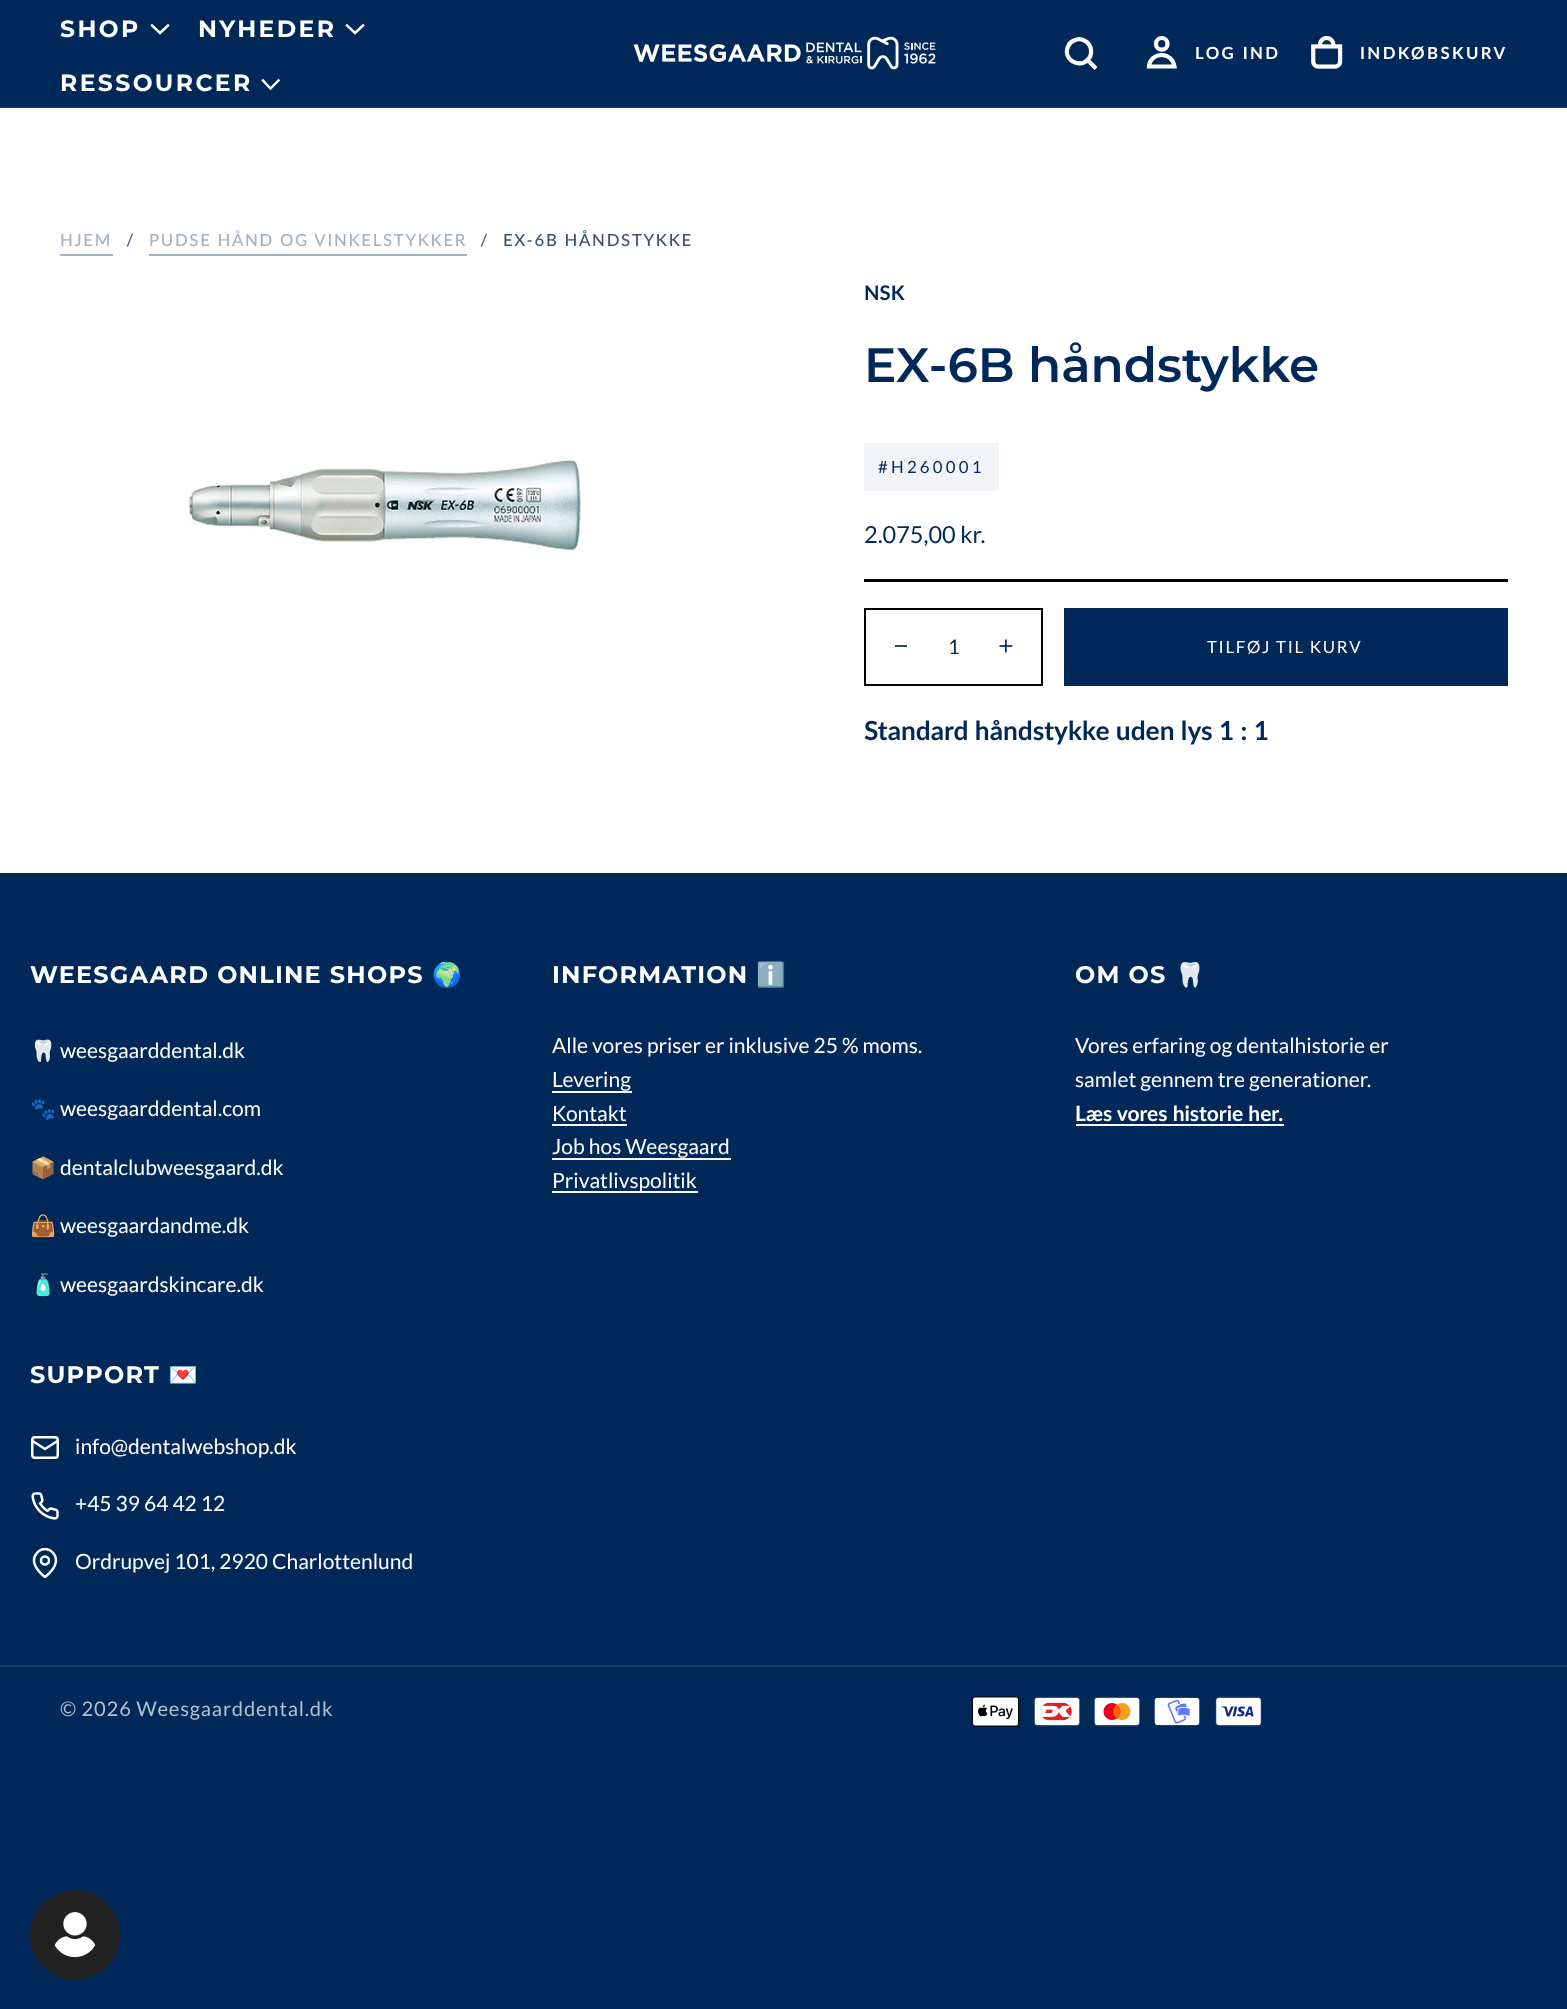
<svg xmlns="http://www.w3.org/2000/svg" xmlns:xlink="http://www.w3.org/1999/xlink" width="1567" height="2009" viewBox="0 0 1567 2009">
<style>
.cls-1{font:bold 23.5px Montserrat;letter-spacing:2.4px;fill:#ffffff}
.cls-2{font:bold 16.75px Lato;letter-spacing:2.4px;fill:#ffffff}
.cls-3{font:500 16.75px Lato;letter-spacing:1.7px;fill:#a3b2c3}
.cls-4{font:500 16.75px Lato;letter-spacing:1.7px;fill:#405e83}
.cls-5{font:500 16.75px Lato;letter-spacing:1.7px;fill:#33537a}
.cls-6{font:bold 20.2px Lato;fill:#002859}
.cls-7{font:600 48.4px Montserrat;fill:#002859}
.cls-8{font:16.75px Lato;letter-spacing:3.25px;fill:#002859}
.cls-9{font:23.5px Lato;fill:#002859}
.cls-10{font:20.2px Lato;fill:#002859}
.cls-11{font:16.75px Lato;letter-spacing:1.7px;fill:#ffffff}
.cls-12{font:bold 26.3px Lato;fill:#002859}
.cls-13{font:bold 24px Montserrat;letter-spacing:1.2px;fill:#ffffff}
.cls-14{font:bold 24px Noto Color Emoji;letter-spacing:1.2px;fill:#ffffff}
.cls-15{font:21px Noto Color Emoji;fill:#ffffff}
.cls-16{font:21px Lato;fill:#ffffff}
.cls-17{font:bold 21px Lato;fill:#ffffff}
.cls-18{font:20.2px Lato;letter-spacing:0.8px;fill:#b3bfcd}
</style>
<defs>
<clipPath id="clip1"><rect x="30" y="1548" width="30" height="30"/></clipPath>
</defs>
<rect width="100%" height="100%" fill="#002859"/>
<rect fill="#1a3e6a" x="0" y="107" width="1567" height="1"/>
<path fill="none" stroke="#ffffff" stroke-width="2.4" stroke-linecap="square" d="M168 25.5L160 33L152 25.5"/>
<path fill="none" stroke="#ffffff" stroke-width="2.4" stroke-linecap="square" d="M363 25.5L355 33L347 25.5"/>
<path fill="none" stroke="#ffffff" stroke-width="2.4" stroke-linecap="square" d="M278.5 80.5L270.5 88.5L263 80.5"/>
<image xlink:href="image0.png" x="633" y="36" width="303" height="34"/>
<path fill="none" stroke="#ffffff" stroke-width="4.2" stroke-linecap="square" d="M1094.5 67L1087.5 60M1087.5 60C1093 55 1092 45.5 1086 41.5C1082.5 39 1078 38.5 1074 40.5C1071.5 41.5 1069 44 1068 46.5C1062.5 59 1078.5 69 1087.5 60Z"/>
<path fill="none" stroke="#ffffff" stroke-width="4.2" d="M1167.5 44C1167.5 51.5 1156 51.5 1156 44C1156 36 1167.5 36 1167.5 44ZM1161.5 55C1154.5 55 1149.5 60 1149 66.5H1174.5C1173.5 60 1168.5 55 1161.5 55Z"/>
<image xlink:href="image1.png" x="1311" y="35" width="32" height="34"/>
<rect fill="#ffffff" x="0" y="108" width="1567" height="765"/>
<rect fill="#a3b2c3" x="60" y="254" width="53" height="2"/>
<rect fill="#a3b2c3" x="149" y="254" width="318" height="2"/>
<image xlink:href="image2.png" x="186" y="460" width="396" height="91"/>
<rect fill="#f2f4f7" x="864" y="443" width="135" height="48"/>
<rect fill="#000000" x="864" y="579" width="644" height="3"/>
<rect fill="none" stroke="#000000" stroke-width="2" x="865" y="609" width="177" height="76"/>
<rect fill="#264872" x="895" y="645" width="12" height="2"/>
<image xlink:href="image3.png" x="999" y="639" width="14" height="14"/>
<rect fill="#002859" x="1064" y="608" width="444" height="78"/>
<rect fill="#ffffff" x="552" y="1091" width="80" height="2"/>
<rect fill="#ffffff" x="552" y="1124" width="75" height="2"/>
<rect fill="#ffffff" x="552" y="1158" width="179" height="2"/>
<rect fill="#ffffff" x="552" y="1191" width="146" height="2"/>
<rect fill="#ffffff" x="1076" y="1124" width="208" height="2"/>
<rect fill="none" stroke="#ffffff" stroke-width="2.5" x="32.25" y="1437.25" width="25.5" height="20.5" rx="2.75"/>
<path fill="none" stroke="#ffffff" stroke-width="2.5" stroke-linecap="round" stroke-linejoin="round" d="M32.5 1441L45 1449L57.5 1441"/>
<image xlink:href="image4.png" x="31" y="1492" width="28" height="28"/>
<g clip-path="url(#clip1)">
<path fill="none" stroke="#ffffff" stroke-width="2.5" stroke-linecap="round" stroke-linejoin="round" d="M56 1560.5C56 1569 45 1577 45 1577C45 1577 34 1569 34 1560.5C34 1554.5 39 1549 45 1549C51 1549 56 1554.5 56 1560.5Z"/>
</g>
<circle fill="none" stroke="#ffffff" stroke-width="2.5" cx="45" cy="1560.5" r="4"/>
<rect fill="#1a3e6a" x="0" y="1665" width="1567" height="2"/>
<image xlink:href="image5.png" x="972" y="1696" width="47" height="31"/>
<image xlink:href="image6.png" x="1034" y="1696" width="46" height="31"/>
<image xlink:href="image7.png" x="1094" y="1696" width="46" height="31"/>
<image xlink:href="image8.png" x="1154" y="1697" width="46" height="29"/>
<image xlink:href="image9.png" x="1215" y="1696" width="47" height="31"/>
<circle fill="#212121" cx="75" cy="1935" r="45"/>
<image xlink:href="image10.png" x="54" y="1912" width="42" height="46"/>
<text class="cls-1" x="60" y="37">SHOP</text>
<text class="cls-1" x="198" y="37">NYHEDER</text>
<text class="cls-1" x="60" y="91">RESSOURCER</text>
<text class="cls-2" x="1195" y="59">LOG IND</text>
<text class="cls-2" x="1360" y="59">INDKØBSKURV</text>
<text class="cls-3" x="60" y="246">HJEM</text>
<text class="cls-4" x="126" y="246">/</text>
<text class="cls-3" x="149" y="246">PUDSE HÅND OG VINKELSTYKKER</text>
<text class="cls-4" x="480" y="246">/</text>
<text class="cls-5" x="503" y="246">EX-6B HÅNDSTYKKE</text>
<text class="cls-6" x="864" y="300">NSK</text>
<text class="cls-7" x="864" y="382">EX-6B håndstykke</text>
<text class="cls-8" x="878" y="473">#H260001</text>
<text class="cls-9" x="864" y="543">2.075,00 kr.</text>
<text class="cls-10" x="948" y="654">1</text>
<text class="cls-11" x="1207" y="653">TILFØJ TIL KURV</text>
<text class="cls-12" x="864" y="740">Standard håndstykke uden lys 1 : 1</text>
<text class="cls-13" x="30" y="983">WEESGAARD ONLINE SHOPS</text>
<text class="cls-14" x="432" y="983">🌍</text>
<text class="cls-15" x="30" y="1058">🦷</text>
<text class="cls-16" x="60" y="1058">weesgaarddental.dk</text>
<text class="cls-15" x="30" y="1116">🐾</text>
<text class="cls-16" x="60" y="1116">weesgaarddental.com</text>
<text class="cls-15" x="30" y="1175">📦</text>
<text class="cls-16" x="60" y="1175">dentalclubweesgaard.dk</text>
<text class="cls-15" x="30" y="1233">👜</text>
<text class="cls-16" x="60" y="1233">weesgaardandme.dk</text>
<text class="cls-15" x="30" y="1292">🧴</text>
<text class="cls-16" x="60" y="1292">weesgaardskincare.dk</text>
<text class="cls-13" x="552" y="983">INFORMATION</text>
<text class="cls-14" x="756" y="983">ℹ️</text>
<text class="cls-16"><tspan x="552" y="1053">Alle vores priser er inklusive 25 % moms.</tspan><tspan x="552" y="1087">Levering</tspan><tspan x="552" y="1121">Kontakt</tspan><tspan x="552" y="1154">Job hos Weesgaard</tspan><tspan x="552" y="1188">Privatlivspolitik</tspan></text>
<text class="cls-13" x="1075" y="983">OM OS</text>
<text class="cls-14" x="1175" y="983">🦷</text>
<text class="cls-16"><tspan x="1075" y="1053">Vores erfaring og dentalhistorie er</tspan><tspan x="1075" y="1087">samlet gennem tre generationer.</tspan></text>
<text class="cls-17" x="1075" y="1121">Læs vores historie her.</text>
<text class="cls-13" x="30" y="1383">SUPPORT</text>
<text class="cls-14" x="168" y="1383">💌</text>
<text class="cls-16" x="75" y="1454">info@dentalwebshop.dk</text>
<text class="cls-16" x="75" y="1511">+45 39 64 42 12</text>
<text class="cls-16" x="75" y="1569">Ordrupvej 101, 2920 Charlottenlund</text>
<text class="cls-18" x="60" y="1716">© 2026 Weesgaarddental.dk</text>
</svg>
